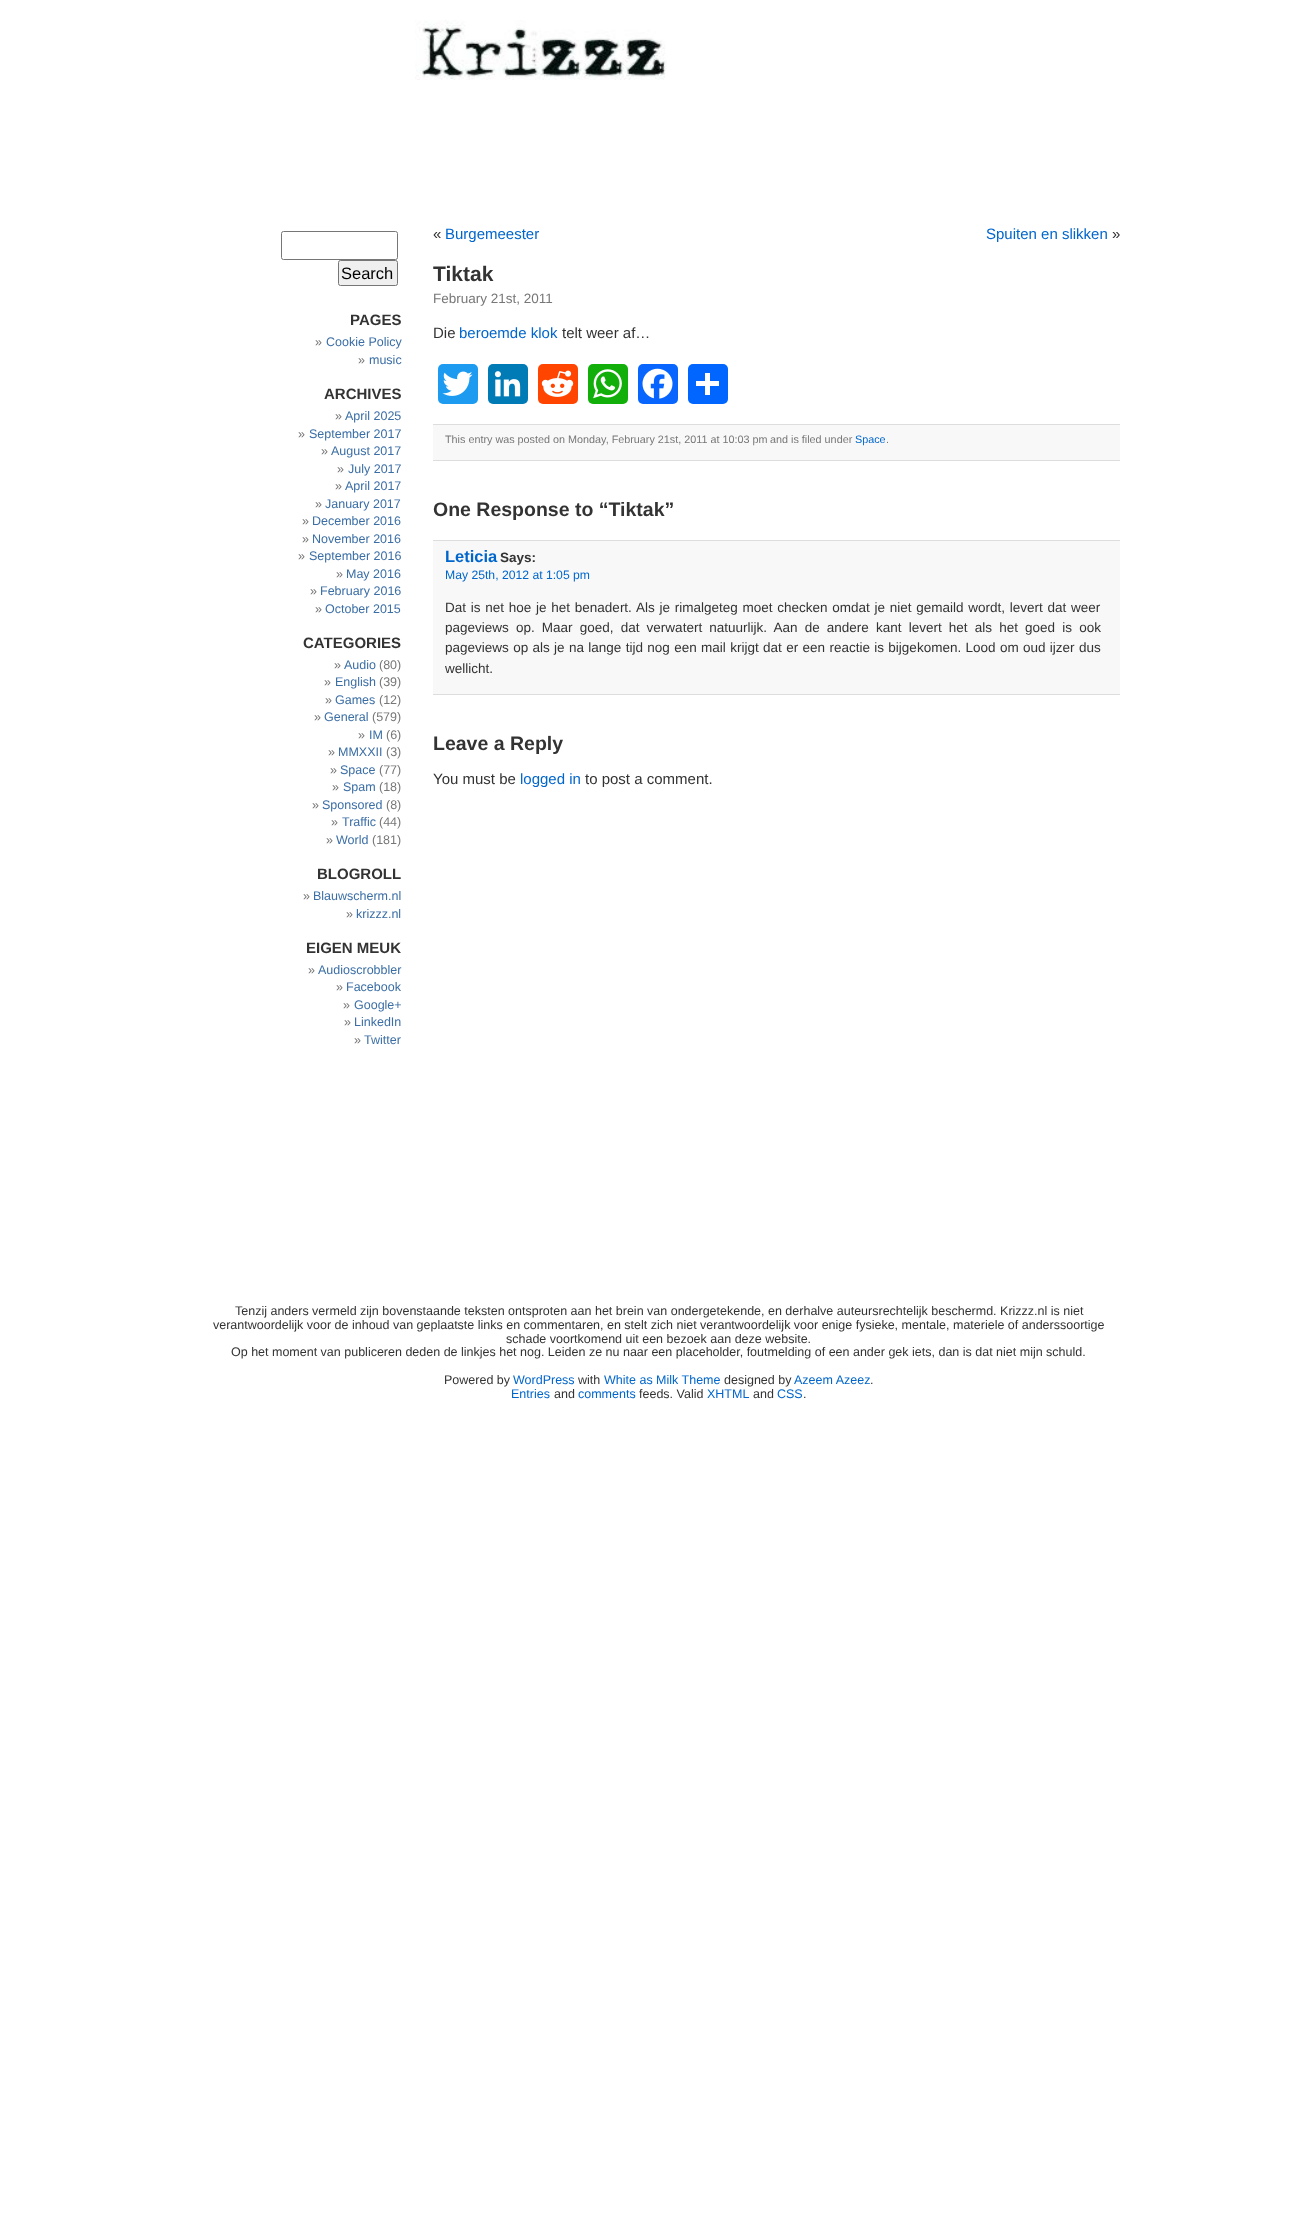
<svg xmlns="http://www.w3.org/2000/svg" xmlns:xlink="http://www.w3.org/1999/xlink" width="1315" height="2214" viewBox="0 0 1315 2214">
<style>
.cls-1{font:16.5px Liberation Sans;fill:#000000}
.cls-2{font:bold 15px Liberation Sans;fill:#333333}
.cls-3{font:12.5px Liberation Sans;fill:#777777}
.cls-4{font:12.5px Liberation Sans;fill:#3b6ea5}
.cls-5{font:15px Liberation Sans;fill:#333333}
.cls-6{font:15px Liberation Sans;fill:#0066cc}
.cls-7{font:bold 21px Liberation Sans;fill:#333333}
.cls-8{font:13.5px Liberation Sans;fill:#777777}
.cls-9{font:10.8px Liberation Sans;fill:#777777}
.cls-10{font:10.8px Liberation Sans;fill:#0066cc}
.cls-11{font:bold 19.5px Liberation Sans;fill:#333333}
.cls-12{font:bold 16.5px Liberation Sans;fill:#0066cc}
.cls-13{font:bold 13.5px Liberation Sans;fill:#333333}
.cls-14{font:12.2px Liberation Sans;fill:#0066cc}
.cls-15{font:13.5px Liberation Sans;fill:#333333}
.cls-16{font:12.5px Liberation Sans;fill:#333333}
.cls-17{font:12.5px Liberation Sans;fill:#0066cc}
</style>
<rect width="100%" height="100%" fill="#ffffff"/>
<image xlink:href="image0.png" x="415" y="20" width="252" height="60"/>
<rect fill="none" stroke="#767676" x="281.5" y="231.5" width="116" height="28" rx="2"/>
<rect fill="#efefef" stroke="#767676" x="338.5" y="260.5" width="59" height="25" rx="2"/>
<rect fill="#1d9bf0" x="438" y="364" width="40" height="40" rx="5"/>
<image xlink:href="image1.png" x="442" y="371" width="31" height="25"/>
<rect fill="#007bb5" x="488" y="364" width="40" height="40" rx="5"/>
<image xlink:href="image2.png" x="494" y="371" width="27" height="26"/>
<rect fill="#ff4500" x="538" y="364" width="40" height="40" rx="5"/>
<image xlink:href="image3.png" x="541" y="370" width="33" height="27"/>
<rect fill="#12af0a" x="588" y="364" width="40" height="40" rx="5"/>
<image xlink:href="image4.png" x="593" y="369" width="29" height="30"/>
<rect fill="#0866ff" x="638" y="364" width="40" height="40" rx="5"/>
<image xlink:href="image5.png" x="642" y="368" width="31" height="31"/>
<rect fill="#0166ff" x="688" y="364" width="40" height="40" rx="5"/>
<rect fill="#ffffff" x="705" y="373" width="5" height="22"/>
<rect fill="#ffffff" x="696" y="381" width="23" height="5"/>
<rect fill="#f8f8f8" x="433" y="425" width="687" height="35"/>
<rect fill="#dddddd" x="433" y="424" width="687" height="1"/>
<rect fill="#dddddd" x="433" y="460" width="687" height="1"/>
<rect fill="#f8f8f8" x="433" y="541" width="687" height="153"/>
<rect fill="#dddddd" x="433" y="540" width="687" height="1"/>
<rect fill="#dddddd" x="433" y="694" width="687" height="1"/>
<text class="cls-1" x="341" y="279">Search</text>
<text class="cls-2" x="350" y="325">PAGES</text>
<text class="cls-3" x="315" y="346">»</text>
<text class="cls-4" x="326" y="346">Cookie Policy</text>
<text class="cls-3" x="358" y="364">»</text>
<text class="cls-4" x="369" y="364">music</text>
<text class="cls-2" x="324" y="399">ARCHIVES</text>
<text class="cls-3" x="335" y="420">»</text>
<text class="cls-4" x="345" y="420">April 2025</text>
<text class="cls-3" x="298" y="438">»</text>
<text class="cls-4" x="309" y="438">September 2017</text>
<text class="cls-3" x="321" y="455">»</text>
<text class="cls-4" x="331" y="455">August 2017</text>
<text class="cls-3" x="337" y="473">»</text>
<text class="cls-4" x="348" y="473">July 2017</text>
<text class="cls-3" x="335" y="490">»</text>
<text class="cls-4" x="345" y="490">April 2017</text>
<text class="cls-3" x="315" y="508">»</text>
<text class="cls-4" x="325" y="508">January 2017</text>
<text class="cls-3" x="302" y="525">»</text>
<text class="cls-4" x="312" y="525">December 2016</text>
<text class="cls-3" x="302" y="543">»</text>
<text class="cls-4" x="312" y="543">November 2016</text>
<text class="cls-3" x="298" y="560">»</text>
<text class="cls-4" x="309" y="560">September 2016</text>
<text class="cls-3" x="336" y="578">»</text>
<text class="cls-4" x="346" y="578">May 2016</text>
<text class="cls-3" x="310" y="595">»</text>
<text class="cls-4" x="320" y="595">February 2016</text>
<text class="cls-3" x="315" y="613">»</text>
<text class="cls-4" x="325" y="613">October 2015</text>
<text class="cls-2" x="303" y="648">CATEGORIES</text>
<text class="cls-3" x="334" y="669">»</text>
<text class="cls-4" x="344" y="669">Audio</text>
<text class="cls-3" x="379" y="669">(80)</text>
<text class="cls-3" x="324" y="686">»</text>
<text class="cls-4" x="335" y="686">English</text>
<text class="cls-3" x="379" y="686">(39)</text>
<text class="cls-3" x="325" y="704">»</text>
<text class="cls-4" x="335" y="704">Games</text>
<text class="cls-3" x="379" y="704">(12)</text>
<text class="cls-3" x="314" y="721">»</text>
<text class="cls-4" x="324" y="721">General</text>
<text class="cls-3" x="372" y="721">(579)</text>
<text class="cls-3" x="358" y="739">»</text>
<text class="cls-4" x="369" y="739">IM</text>
<text class="cls-3" x="386" y="739">(6)</text>
<text class="cls-3" x="328" y="756">»</text>
<text class="cls-4" x="338" y="756">MMXXII</text>
<text class="cls-3" x="386" y="756">(3)</text>
<text class="cls-3" x="330" y="774">»</text>
<text class="cls-4" x="340" y="774">Space</text>
<text class="cls-3" x="379" y="774">(77)</text>
<text class="cls-3" x="332" y="791">»</text>
<text class="cls-4" x="343" y="791">Spam</text>
<text class="cls-3" x="379" y="791">(18)</text>
<text class="cls-3" x="312" y="809">»</text>
<text class="cls-4" x="322" y="809">Sponsored</text>
<text class="cls-3" x="386" y="809">(8)</text>
<text class="cls-3" x="331" y="826">»</text>
<text class="cls-4" x="342" y="826">Traffic</text>
<text class="cls-3" x="379" y="826">(44)</text>
<text class="cls-3" x="326" y="844">»</text>
<text class="cls-4" x="336" y="844">World</text>
<text class="cls-3" x="372" y="844">(181)</text>
<text class="cls-2" x="317" y="879">BLOGROLL</text>
<text class="cls-3" x="303" y="900">»</text>
<text class="cls-4" x="313" y="900">Blauwscherm.nl</text>
<text class="cls-3" x="346" y="918">»</text>
<text class="cls-4" x="356" y="918">krizzz.nl</text>
<text class="cls-2" x="306" y="953">EIGEN MEUK</text>
<text class="cls-3" x="308" y="974">»</text>
<text class="cls-4" x="318" y="974">Audioscrobbler</text>
<text class="cls-3" x="336" y="991">»</text>
<text class="cls-4" x="346" y="991">Facebook</text>
<text class="cls-3" x="343" y="1009">»</text>
<text class="cls-4" x="354" y="1009">Google+</text>
<text class="cls-3" x="344" y="1026">»</text>
<text class="cls-4" x="354" y="1026">LinkedIn</text>
<text class="cls-3" x="354" y="1044">»</text>
<text class="cls-4" x="364" y="1044">Twitter</text>
<text class="cls-5" x="433" y="239">«</text>
<text class="cls-6" x="445" y="239">Burgemeester</text>
<text class="cls-6" x="986" y="239">Spuiten en slikken</text>
<text class="cls-5" x="1112" y="239">»</text>
<text class="cls-7" x="433" y="281">Tiktak</text>
<text class="cls-8" x="433" y="303">February 21st, 2011</text>
<text class="cls-5" x="433" y="338">Die</text>
<text class="cls-6" x="459" y="338">beroemde klok</text>
<text class="cls-5" x="562" y="338">telt weer af…</text>
<text class="cls-9" x="445" y="443">This entry was posted on Monday, February 21st, 2011 at 10:03 pm</text>
<text class="cls-9" x="770" y="443">and is filed under</text>
<text class="cls-10" x="855" y="443">Space</text>
<text class="cls-9" x="886" y="443">.</text>
<text class="cls-11" x="433" y="516">One Response to “Tiktak”</text>
<text class="cls-12" x="445" y="562">Leticia</text>
<text class="cls-13" x="500" y="562">Says:</text>
<text class="cls-14" x="445" y="579">May 25th, 2012 at 1:05 pm</text>
<text class="cls-15"><tspan x="445" y="612" word-spacing="1">Dat is net hoe je het benadert. Als je rimalgeteg moet checken omdat je niet gemaild wordt, levert dat weer</tspan><tspan x="445" y="632" word-spacing="3.4">pageviews op. Maar goed, dat verwatert natuurlijk. Aan de andere kant levert het als het goed is ook</tspan><tspan x="445" y="652" word-spacing="0.6">pageviews op als je na lange tijd nog een mail krijgt dat er een reactie is bijgekomen. Lood om oud ijzer dus</tspan><tspan x="445" y="673">wellicht.</tspan></text>
<text class="cls-11" x="433" y="750">Leave a Reply</text>
<text class="cls-5" x="433" y="784">You must be</text>
<text class="cls-6" x="520" y="784">logged in</text>
<text class="cls-5" x="585" y="784">to post a comment.</text>
<text class="cls-16" x="235" y="1315">Tenzij anders vermeld zijn bovenstaande teksten ontsproten aan het brein van ondergetekende, en derhalve auteursrechtelijk beschermd. Krizzz.nl is niet</text>
<text class="cls-16" x="213" y="1329">verantwoordelijk voor de inhoud van geplaatste links en commentaren, en stelt zich niet verantwoordelijk voor enige fysieke, mentale, materiele of anderssoortige</text>
<text class="cls-16" x="506" y="1343">schade voortkomend uit een bezoek aan deze website.</text>
<text class="cls-16" x="231" y="1356">Op het moment van publiceren deden de linkjes het nog. Leiden ze nu naar een placeholder, foutmelding of een ander gek iets, dan is dat niet mijn schuld.</text>
<text class="cls-16" x="444" y="1384">Powered by</text>
<text class="cls-17" x="513" y="1384">WordPress</text>
<text class="cls-16" x="578" y="1384">with</text>
<text class="cls-17" x="604" y="1384">White as Milk Theme</text>
<text class="cls-16" x="724" y="1384">designed by</text>
<text class="cls-17" x="794" y="1384">Azeem Azeez</text>
<text class="cls-16" x="870" y="1384">.</text>
<text class="cls-17" x="511" y="1398">Entries</text>
<text class="cls-16" x="554" y="1398">and</text>
<text class="cls-17" x="578" y="1398">comments</text>
<text class="cls-16" x="639" y="1398">feeds. Valid</text>
<text class="cls-17" x="707" y="1398">XHTML</text>
<text class="cls-16" x="753" y="1398">and</text>
<text class="cls-17" x="777" y="1398">CSS</text>
<text class="cls-16" x="803" y="1398">.</text>
</svg>
